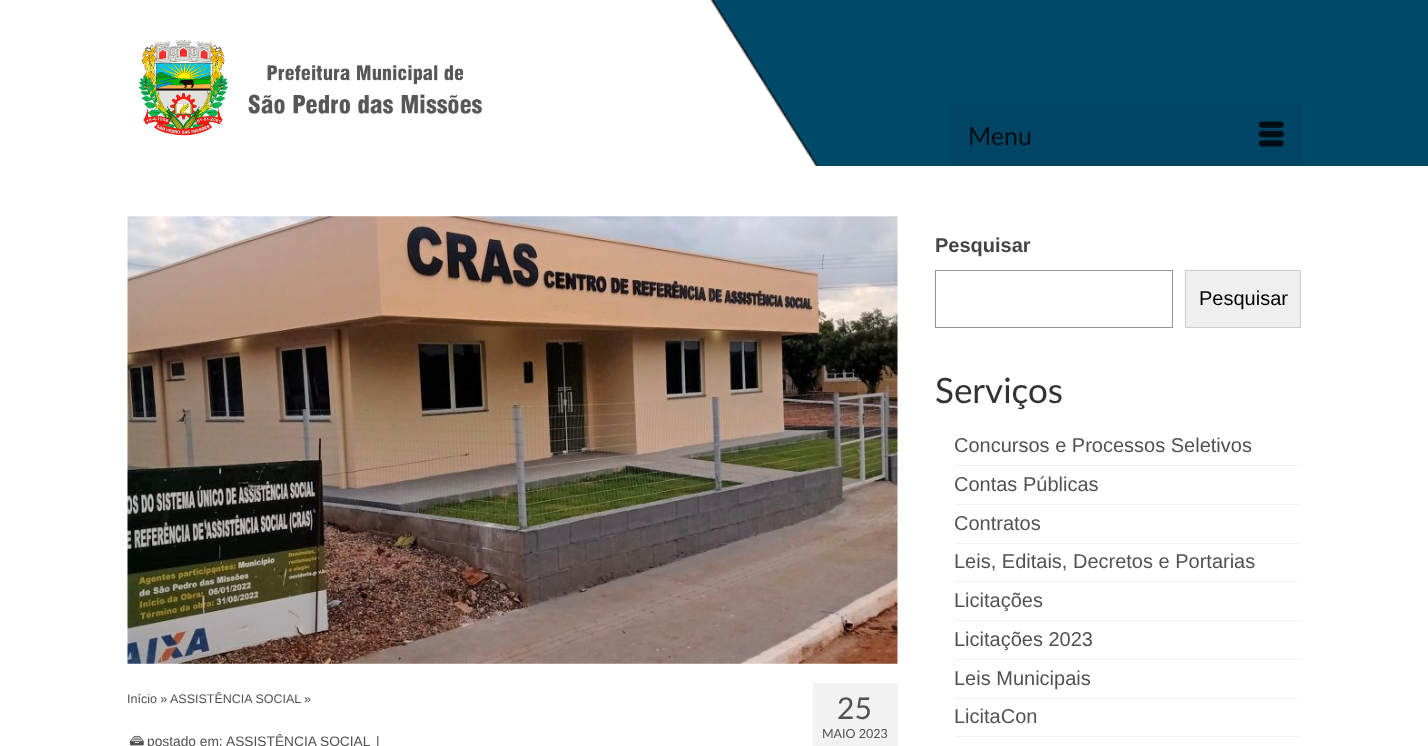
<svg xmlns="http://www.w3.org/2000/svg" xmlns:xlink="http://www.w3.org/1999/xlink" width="1428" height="746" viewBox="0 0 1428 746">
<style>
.cls-1{font:25px Lato;fill:#000e14}
.cls-2{font:12.5px Liberation Sans;fill:#515151}
.cls-3{font:13.75px Liberation Sans;fill:#515151}
.cls-4{font:30px Lato;fill:#515151}
.cls-5{font:12.5px Lato;fill:#515151}
.cls-6{font:bold 20px Liberation Sans;fill:#444444}
.cls-7{font:20px Liberation Sans;fill:#000000}
.cls-8{font:35px Lato;fill:#333333}
.cls-9{font:20px Liberation Sans;fill:#515151}
</style>
<rect width="100%" height="100%" fill="#ffffff"/>
<image xlink:href="image0.png" x="711" y="0" width="717" height="166"/>
<image xlink:href="image1.png" x="138" y="40" width="344" height="96"/>
<rect fill="#004664" x="950" y="104" width="353" height="62"/>
<image xlink:href="image2.png" x="1258" y="121" width="26" height="26"/>
<image xlink:href="image3.png" x="127" y="216" width="771" height="448"/>
<image xlink:href="image4.png" x="130" y="735" width="14" height="11"/>
<rect fill="#f2f2f2" x="813" y="683" width="85" height="63"/>
<rect fill="none" stroke="#949494" x="935.5" y="270.5" width="237" height="57"/>
<rect fill="#efefef" stroke="#cccccc" x="1185.5" y="270.5" width="115" height="57"/>
<rect fill="#f2f2f2" x="954" y="465" width="347" height="1"/>
<rect fill="#f2f2f2" x="954" y="504" width="347" height="1"/>
<rect fill="#f2f2f2" x="954" y="543" width="347" height="1"/>
<rect fill="#f2f2f2" x="954" y="581" width="347" height="1"/>
<rect fill="#f2f2f2" x="954" y="620" width="347" height="1"/>
<rect fill="#f2f2f2" x="954" y="659" width="347" height="1"/>
<rect fill="#f2f2f2" x="954" y="698" width="347" height="1"/>
<rect fill="#f2f2f2" x="954" y="736" width="347" height="1"/>
<text class="cls-1" x="968" y="145">Menu</text>
<text class="cls-2" x="127" y="703">Início »</text>
<text class="cls-2" x="170" y="703">ASSISTÊNCIA SOCIAL</text>
<text class="cls-2" x="304" y="703">»</text>
<text class="cls-3" x="147" y="746">postado em:</text>
<text class="cls-3" x="226" y="746">ASSISTÊNCIA SOCIAL</text>
<text class="cls-3" x="376" y="746">|</text>
<text class="cls-4" x="837" y="719">25</text>
<text class="cls-5" x="822" y="738">MAIO 2023</text>
<text class="cls-6" x="935" y="252">Pesquisar</text>
<text class="cls-7" x="1199" y="305">Pesquisar</text>
<text class="cls-8" x="935" y="403">Serviços</text>
<text class="cls-9"><tspan x="954" y="452">Concursos e Processos Seletivos</tspan><tspan x="954" y="491">Contas Públicas</tspan><tspan x="954" y="530">Contratos</tspan><tspan x="954" y="568">Leis, Editais, Decretos e Portarias</tspan><tspan x="954" y="607">Licitações</tspan><tspan x="954" y="646">Licitações 2023</tspan><tspan x="954" y="685">Leis Municipais</tspan><tspan x="954" y="723">LicitaCon</tspan></text>
</svg>
